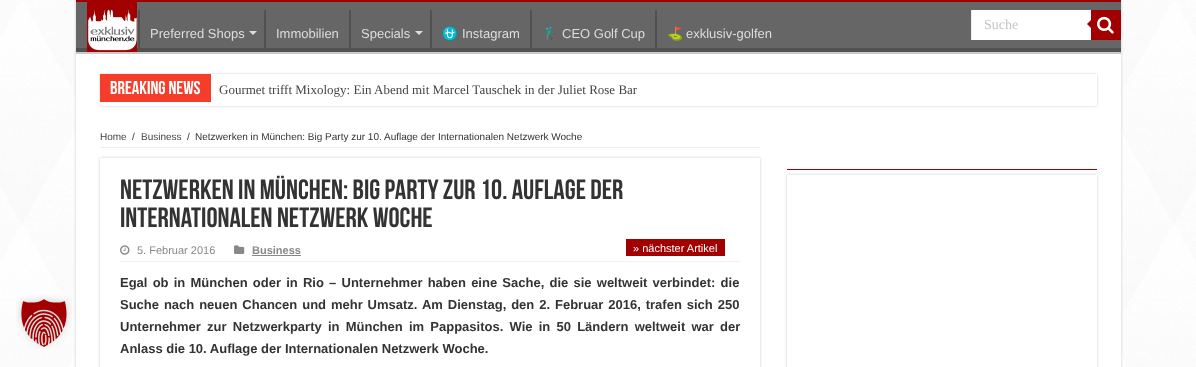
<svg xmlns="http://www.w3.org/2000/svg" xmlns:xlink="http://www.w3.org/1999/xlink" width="1196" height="367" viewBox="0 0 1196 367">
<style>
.cls-1{font:14px Liberation Serif;fill:#c5c5c5}
.cls-2{font:13px Liberation Sans;fill:#dddddd}
.cls-3{font:13px Noto Color Emoji;fill:#dddddd}
.cls-4{font:bold 18.5px Bebas Neue;fill:#ffffff}
.cls-5{font:13px Liberation Serif;fill:#444444}
.cls-6{font:10px Liberation Sans;fill:#444444}
.cls-7{font:10px Liberation Sans;fill:#333333}
.cls-8{font:bold 28px Bebas Neue;fill:#333333}
.cls-9{font:11px Liberation Sans;fill:#888888}
.cls-10{font:bold 11px Liberation Sans;fill:#888888}
.cls-11{font:11px Liberation Sans;fill:#ffffff}
.cls-12{font:bold 13px Liberation Sans;fill:#333333}
</style>
<defs>
<clipPath id="clip1"><rect x="76" y="2" width="1045" height="50"/></clipPath>
<clipPath id="clip2"><path d="M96 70H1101V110H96ZM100 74H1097V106H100Z" clip-rule="evenodd"/></clipPath>
<clipPath id="clip3"><path d="M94 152H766V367H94ZM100 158H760V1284H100Z" clip-rule="evenodd"/></clipPath>
<clipPath id="clip4"><path d="M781 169H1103V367H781ZM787 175H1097V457H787Z" clip-rule="evenodd"/></clipPath>
</defs>
<rect width="100%" height="100%" fill="#ffffff"/>
<image xlink:href="image0.png" x="0" y="0" width="1196" height="367"/>
<rect fill="#cacaca" filter="blur(1.5px)" x="76" y="0" width="1045" height="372"/>
<image xlink:href="image1.png" x="16" y="295" width="56" height="54"/>
<rect fill="#ffffff" x="76" y="54" width="1045" height="313"/>
<rect fill="#a20000" x="76" y="0" width="1045" height="2"/>
<rect fill="#666666" x="76" y="2" width="1045" height="46"/>
<rect fill="#ffffff" x="972" y="10" width="119" height="30"/>
<rect fill="#ececec" x="971" y="10" width="1" height="30"/>
<rect fill="#a20000" x="1091" y="10" width="30" height="30"/>
<image xlink:href="image2.png" x="1097" y="16" width="17" height="18"/>
<path fill="#a20000" d="M1091 20V28L1087 24Z"/>
<g clip-path="url(#clip1)">
<path fill="#515152" fill-rule="evenodd" d="M-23-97H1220V151H-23ZM75-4H1120C1123-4 1121 5 1121 5V48H1120H75L74 47V-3Z"/>
</g>
<rect fill="#cacaca" x="76" y="52" width="1045" height="2"/>
<image xlink:href="image3.png" x="87" y="2" width="50" height="50"/>
<rect fill="#515152" x="138" y="10" width="2" height="42"/>
<path fill="#dddddd" d="M249 31H257L253 35Z"/>
<rect fill="#515152" x="264" y="10" width="2" height="42"/>
<rect fill="#515152" x="349" y="10" width="2" height="42"/>
<path fill="#dddddd" d="M415 31H423L419 35Z"/>
<rect fill="#515152" x="430" y="10" width="2" height="42"/>
<rect fill="#515152" x="530" y="10" width="2" height="42"/>
<rect fill="#515152" x="655" y="10" width="2" height="42"/>
<g clip-path="url(#clip2)">
<rect fill="#cacaca" filter="blur(1px)" x="100" y="74" width="997" height="32"/>
</g>
<rect fill="#f43d2a" x="100" y="74" width="111" height="28"/>
<rect fill="#eeeeee" x="100" y="147" width="660" height="1"/>
<g clip-path="url(#clip3)">
<rect fill="#cacaca" filter="blur(1.5px)" x="100" y="158" width="660" height="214"/>
</g>
<rect fill="#f2f2f2" x="120" y="261" width="620" height="1"/>
<image xlink:href="image4.png" x="120" y="245" width="10" height="10"/>
<image xlink:href="image5.png" x="234" y="245" width="11" height="9"/>
<rect fill="#888888" x="252" y="255" width="49" height="1"/>
<rect fill="#a20000" x="626" y="239" width="99" height="17"/>
<g clip-path="url(#clip4)">
<rect fill="#cacaca" filter="blur(1.5px)" x="787" y="175" width="310" height="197"/>
</g>
<rect fill="#a20000" x="787" y="169" width="310" height="1"/>
<text class="cls-1" x="984" y="29">Suche</text>
<text class="cls-2" x="150" y="38">Preferred Shops</text>
<text class="cls-2" x="276" y="38">Immobilien</text>
<text class="cls-2" x="361" y="38">Specials</text>
<text class="cls-3" x="442" y="38">⛎</text>
<text class="cls-2" x="462" y="38">Instagram</text>
<text class="cls-3" x="542" y="38">🏌️‍♂️</text>
<text class="cls-2" x="562" y="38">CEO Golf Cup</text>
<text class="cls-3" x="667" y="38">⛳️</text>
<text class="cls-2" x="686" y="38">exklusiv-golfen</text>
<text class="cls-4" x="110" y="94">Breaking News</text>
<text class="cls-5" x="219" y="94">Gourmet trifft Mixology: Ein Abend mit Marcel Tauschek in der Juliet Rose Bar</text>
<text class="cls-6" x="100" y="140">Home</text>
<text class="cls-7" x="132" y="140">/</text>
<text class="cls-6" x="141" y="140">Business</text>
<text class="cls-7" x="187" y="140">/</text>
<text class="cls-7" x="195" y="140">Netzwerken in München: Big Party zur 10. Auflage der Internationalen Netzwerk Woche</text>
<text class="cls-8"><tspan x="120" y="199">Netzwerken in München: Big Party zur 10. Auflage der</tspan><tspan x="120" y="227">Internationalen Netzwerk Woche</tspan></text>
<text class="cls-9" x="137" y="254">5. Februar 2016</text>
<text class="cls-10" x="252" y="254">Business</text>
<text class="cls-11" x="633" y="252">» nächster Artikel</text>
<text class="cls-12"><tspan x="120" y="287" word-spacing="1.6">Egal ob in München oder in Rio – Unternehmer haben eine Sache, die sie weltweit verbindet: die</tspan><tspan x="120" y="309" word-spacing="1.3">Suche nach neuen Chancen und mehr Umsatz. Am Dienstag, den 2. Februar 2016, trafen sich 250</tspan><tspan x="120" y="331" word-spacing="2.6">Unternehmer zur Netzwerkparty in München im Pappasitos. Wie in 50 Ländern weltweit war der</tspan><tspan x="120" y="353">Anlass die 10. Auflage der Internationalen Netzwerk Woche.</tspan></text>
</svg>
